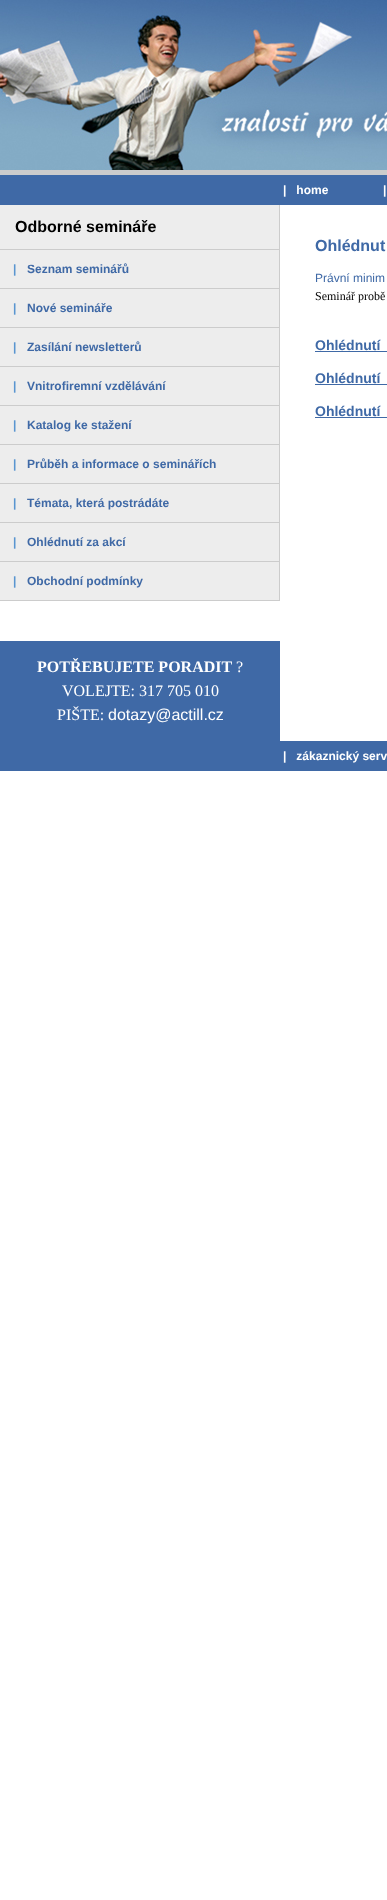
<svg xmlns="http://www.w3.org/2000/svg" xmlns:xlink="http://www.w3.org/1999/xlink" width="387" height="1900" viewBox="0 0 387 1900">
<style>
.cls-1{font:bold 12px Liberation Sans;fill:#ffffff}
.cls-2{font:bold 16px Liberation Sans;fill:#000000}
.cls-3{font:bold 12px Liberation Sans;fill:#5995d0}
.cls-4{font:bold 12px Liberation Sans;fill:#3f69a6}
.cls-5{font:bold 16px Liberation Serif;fill:#ffffff}
.cls-6{font:16px Liberation Serif;fill:#ffffff}
.cls-7{font:16px Liberation Sans;fill:#ffffff}
.cls-8{font:bold 16px Liberation Sans;fill:#3f69a6}
.cls-9{font:12px Liberation Sans;fill:#3f69a6}
.cls-10{font:12px Liberation Serif;fill:#000000}
.cls-11{font:bold 14px Liberation Sans;fill:#3f69a6}
</style>
<rect width="100%" height="100%" fill="#ffffff"/>
<image xlink:href="image0.png" x="0" y="0" width="387" height="170"/>
<rect fill="#cccccc" x="0" y="170" width="387" height="5"/>
<rect fill="#3f69a6" x="0" y="175" width="387" height="30"/>
<rect fill="#cccccc" x="279" y="205" width="1" height="396"/>
<rect fill="#ededed" x="0" y="205" width="279" height="44"/>
<rect fill="#cccccc" x="0" y="249" width="279" height="1"/>
<rect fill="#ededed" x="0" y="250" width="279" height="38"/>
<rect fill="#cccccc" x="0" y="288" width="279" height="1"/>
<rect fill="#ededed" x="0" y="289" width="279" height="38"/>
<rect fill="#cccccc" x="0" y="327" width="279" height="1"/>
<rect fill="#ededed" x="0" y="328" width="279" height="38"/>
<rect fill="#cccccc" x="0" y="366" width="279" height="1"/>
<rect fill="#ededed" x="0" y="367" width="279" height="38"/>
<rect fill="#cccccc" x="0" y="405" width="279" height="1"/>
<rect fill="#ededed" x="0" y="406" width="279" height="38"/>
<rect fill="#cccccc" x="0" y="444" width="279" height="1"/>
<rect fill="#ededed" x="0" y="445" width="279" height="38"/>
<rect fill="#cccccc" x="0" y="483" width="279" height="1"/>
<rect fill="#ededed" x="0" y="484" width="279" height="38"/>
<rect fill="#cccccc" x="0" y="522" width="279" height="1"/>
<rect fill="#ededed" x="0" y="523" width="279" height="38"/>
<rect fill="#cccccc" x="0" y="561" width="279" height="1"/>
<rect fill="#ededed" x="0" y="562" width="279" height="38"/>
<rect fill="#cccccc" x="0" y="600" width="279" height="1"/>
<rect fill="#3f69a6" x="0" y="641" width="280" height="100"/>
<rect fill="#3f69a6" x="315" y="351" width="72" height="1"/>
<rect fill="#3f69a6" x="315" y="384" width="72" height="1"/>
<rect fill="#3f69a6" x="315" y="417" width="72" height="1"/>
<rect fill="#3f69a6" x="0" y="741" width="387" height="30"/>
<text class="cls-1" xml:space="preserve" x="283" y="194">|   home</text>
<text class="cls-1" x="383" y="194">|</text>
<text class="cls-2" x="15" y="232">Odborné semináře</text>
<text class="cls-3" x="13" y="273">|</text>
<text class="cls-4" x="27" y="273">Seznam seminářů</text>
<text class="cls-3" x="13" y="312">|</text>
<text class="cls-4" x="27" y="312">Nové semináře</text>
<text class="cls-3" x="13" y="351">|</text>
<text class="cls-4" x="27" y="351">Zasílání newsletterů</text>
<text class="cls-3" x="13" y="390">|</text>
<text class="cls-4" x="27" y="390">Vnitrofiremní vzdělávání</text>
<text class="cls-3" x="13" y="429">|</text>
<text class="cls-4" x="27" y="429">Katalog ke stažení</text>
<text class="cls-3" x="13" y="468">|</text>
<text class="cls-4" x="27" y="468">Průběh a informace o seminářích</text>
<text class="cls-3" x="13" y="507">|</text>
<text class="cls-4" x="27" y="507">Témata, která postrádáte</text>
<text class="cls-3" x="13" y="546">|</text>
<text class="cls-4" x="27" y="546">Ohlédnutí za akcí</text>
<text class="cls-3" x="13" y="585">|</text>
<text class="cls-4" x="27" y="585">Obchodní podmínky</text>
<text class="cls-5" x="37" y="672">POTŘEBUJETE PORADIT</text>
<text class="cls-6" x="236" y="672">?</text>
<text class="cls-6" x="62" y="696">VOLEJTE: 317 705 010</text>
<text class="cls-6" x="57" y="720">PIŠTE:</text>
<text class="cls-7" x="108" y="720">dotazy@actill.cz</text>
<text class="cls-8" x="315" y="251">Ohlédnut</text>
<text class="cls-9" x="315" y="282">Právní minim</text>
<text class="cls-10" x="315" y="300">Seminář probě</text>
<text class="cls-11" x="315" y="350">Ohlédnutí</text>
<text class="cls-11" x="315" y="383">Ohlédnutí</text>
<text class="cls-11" x="315" y="416">Ohlédnutí</text>
<text class="cls-1" xml:space="preserve" x="283" y="760">|   zákaznický serv</text>
</svg>
